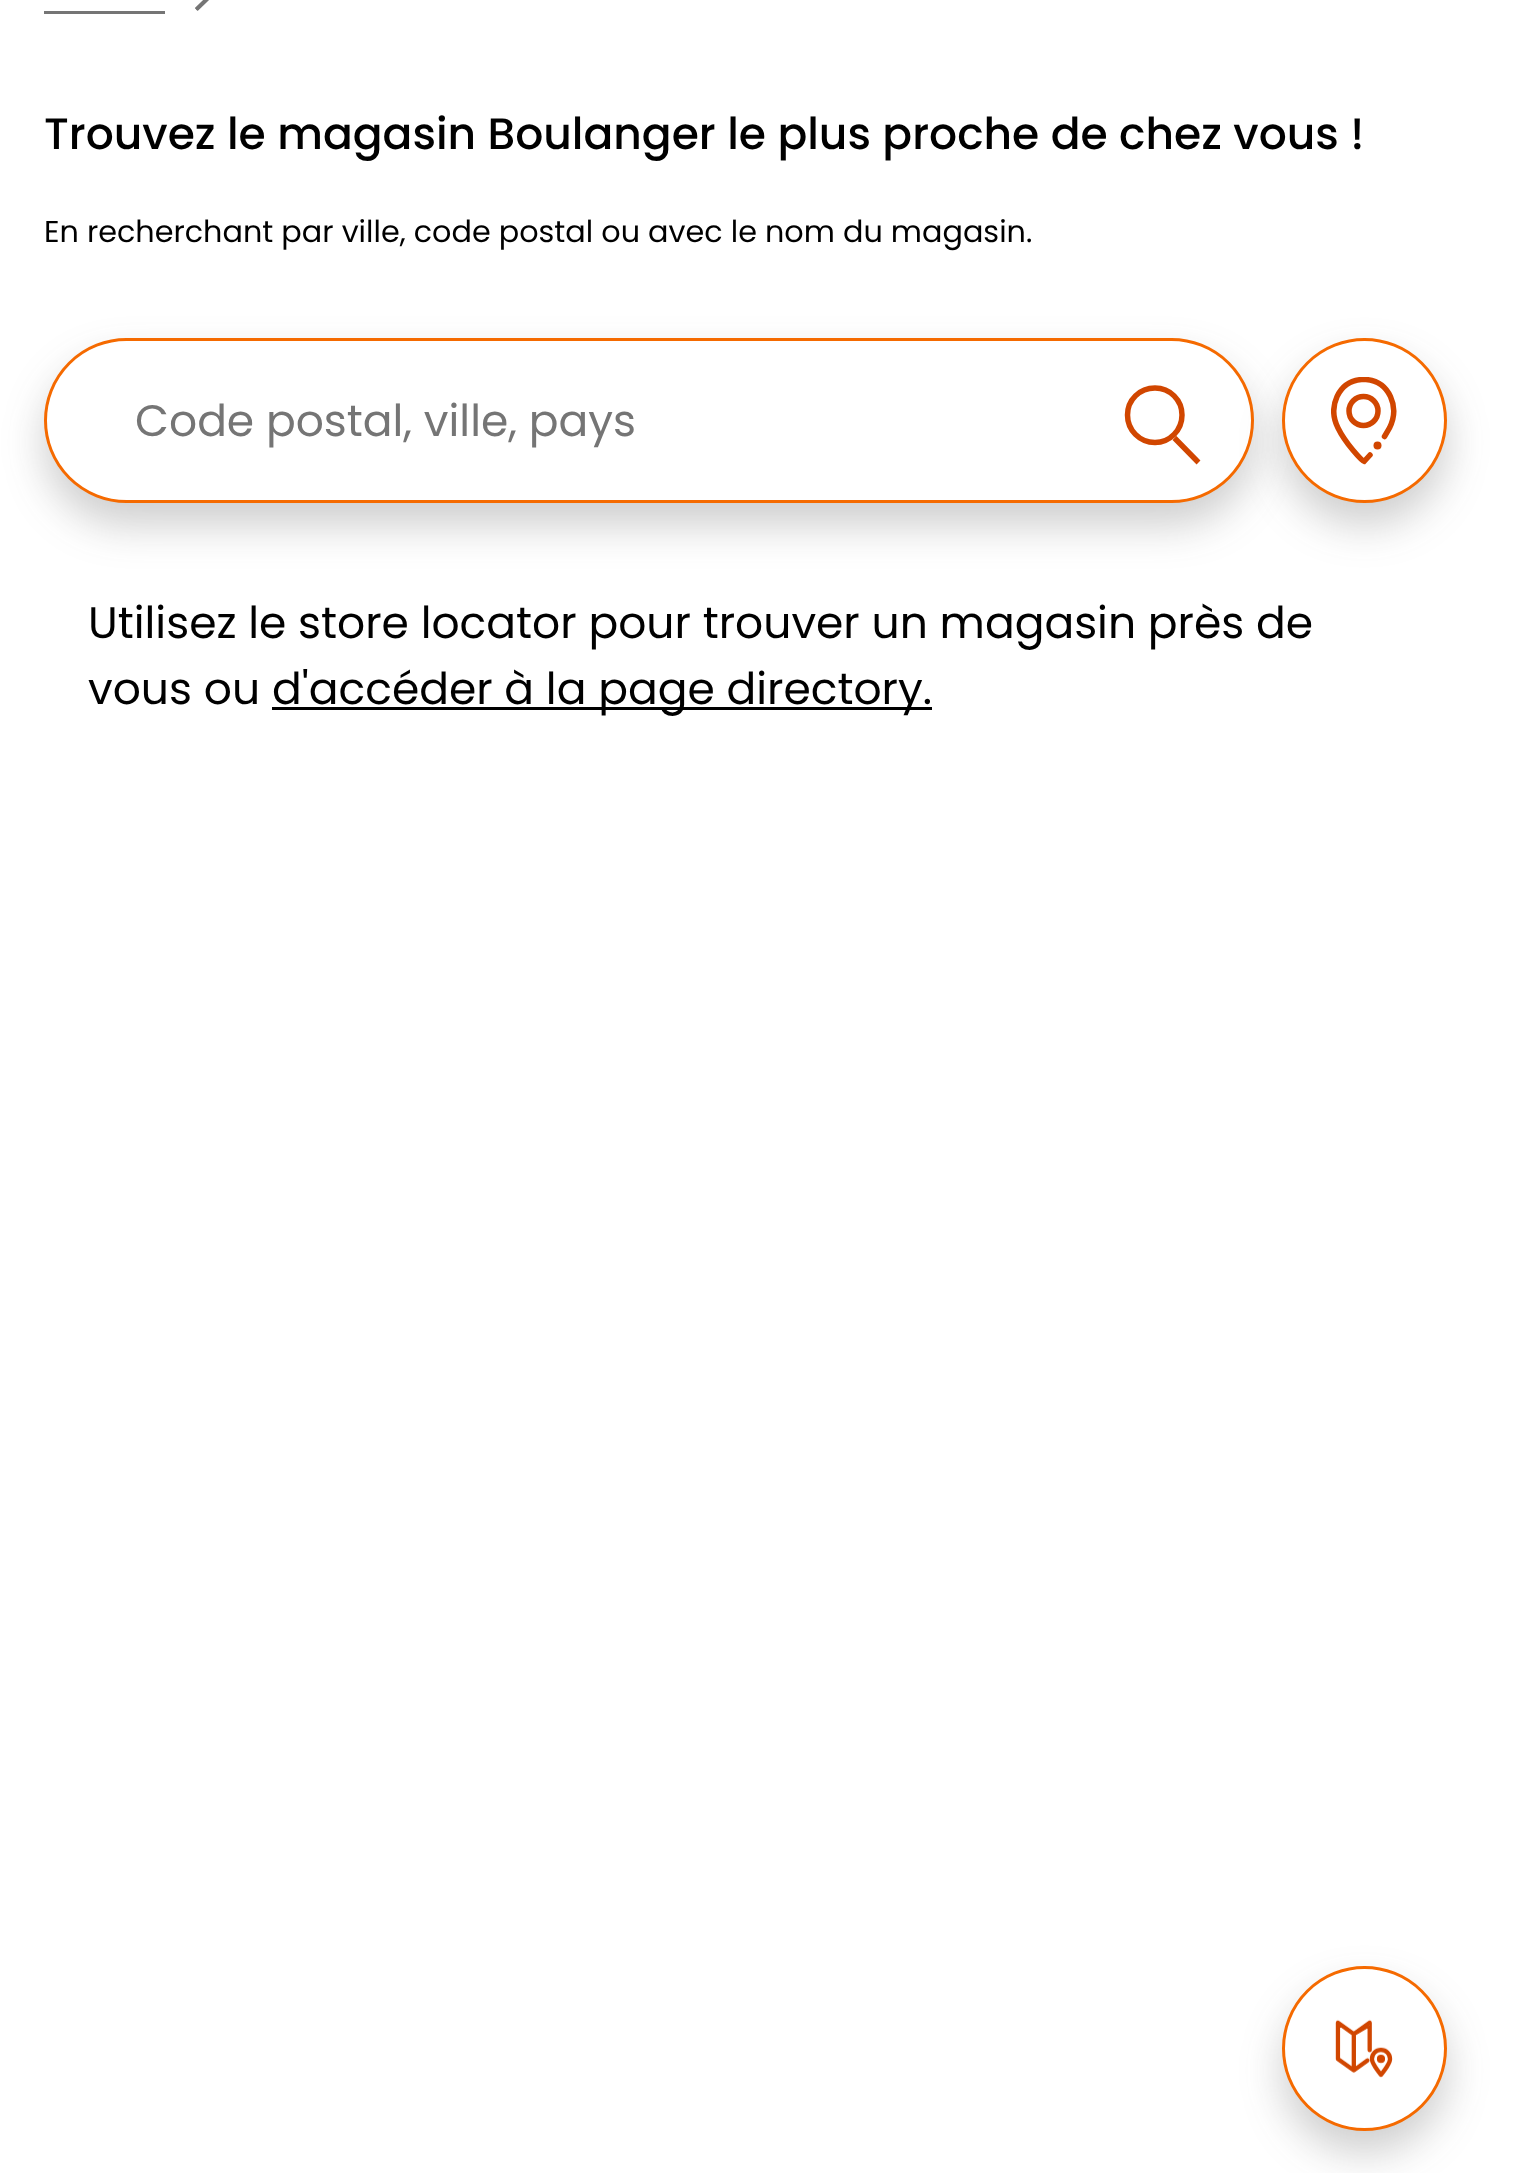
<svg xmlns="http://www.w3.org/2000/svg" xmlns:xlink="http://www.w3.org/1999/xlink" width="1538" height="2173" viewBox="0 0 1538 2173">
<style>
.cls-1{font:500 44px Poppins;fill:#000000}
.cls-2{font:30.25px Poppins;fill:#000000}
.cls-3{font:44px Poppins;fill:#757575}
.cls-4{font:44px Poppins;fill:#000000}
</style>
<defs>
<clipPath id="clip1"><rect x="1331" y="377" width="66" height="88"/></clipPath>
</defs>
<rect width="100%" height="100%" fill="#ffffff"/>
<image xlink:href="image0.png" x="195" y="0" width="14" height="11"/>
<rect fill="#757575" x="44" y="11" width="121" height="3"/>
<rect fill="#3b3b3b" fill-opacity="0.25" filter="blur(20.5px)" x="44" y="360" width="1210" height="165" rx="82.5"/>
<rect fill="#ffffff" stroke="#f56a00" stroke-width="3" x="45.5" y="339.5" width="1207" height="162" rx="81"/>
<path fill="none" stroke="#d14600" stroke-width="5.5" d="M1182 415C1182 430 1170 442.5 1155 442.5C1139.5 442.5 1127.5 430 1127.5 415C1127.5 400 1139.5 388 1155 388C1170 388 1182 400 1182 415ZM1174.5 438L1198.5 462.5Z"/>
<rect fill="#3b3b3b" fill-opacity="0.25" filter="blur(20.5px)" x="1282" y="360" width="165" height="165" rx="82.5"/>
<circle fill="#ffffff" stroke="#f56a00" stroke-width="3" cx="1364.5" cy="420.5" r="81"/>
<circle fill="none" stroke="#d14600" stroke-width="5.5" cx="1363.5" cy="411" r="14.5"/>
<g clip-path="url(#clip1)">
<path fill="none" stroke="#d14600" stroke-width="5.5" stroke-linecap="round" d="M1384.5 436.5L1389.5 428C1400 407 1389.5 381.5 1366 379.5H1361.5C1338 381.5 1327.5 407 1338 428C1345.5 443.5 1362.5 461.5 1364 461.5L1370 455"/>
</g>
<circle fill="#d14600" cx="1377.5" cy="445.5" r="4"/>
<rect fill="#000000" x="272" y="707" width="660" height="3"/>
<rect fill="#3b3b3b" fill-opacity="0.25" filter="blur(20.5px)" x="1282" y="1988" width="165" height="165" rx="82.5"/>
<circle fill="#ffffff" stroke="#f56a00" stroke-width="3" cx="1364.5" cy="2048.5" r="81"/>
<image xlink:href="image1.png" x="1335" y="2019" width="58" height="59"/>
<text class="cls-1" x="44" y="149">Trouvez le magasin Boulanger le plus proche de chez vous !</text>
<text class="cls-2" x="44" y="242">En recherchant par ville, code postal ou avec le nom du magasin.</text>
<text class="cls-3" x="135" y="436">Code postal, ville, pays</text>
<text class="cls-4"><tspan x="88" y="638">Utilisez le store locator pour trouver un magasin près de</tspan><tspan x="88" y="704">vous ou</tspan></text>
<text class="cls-4" x="272" y="704">d'accéder à la page directory.</text>
</svg>
